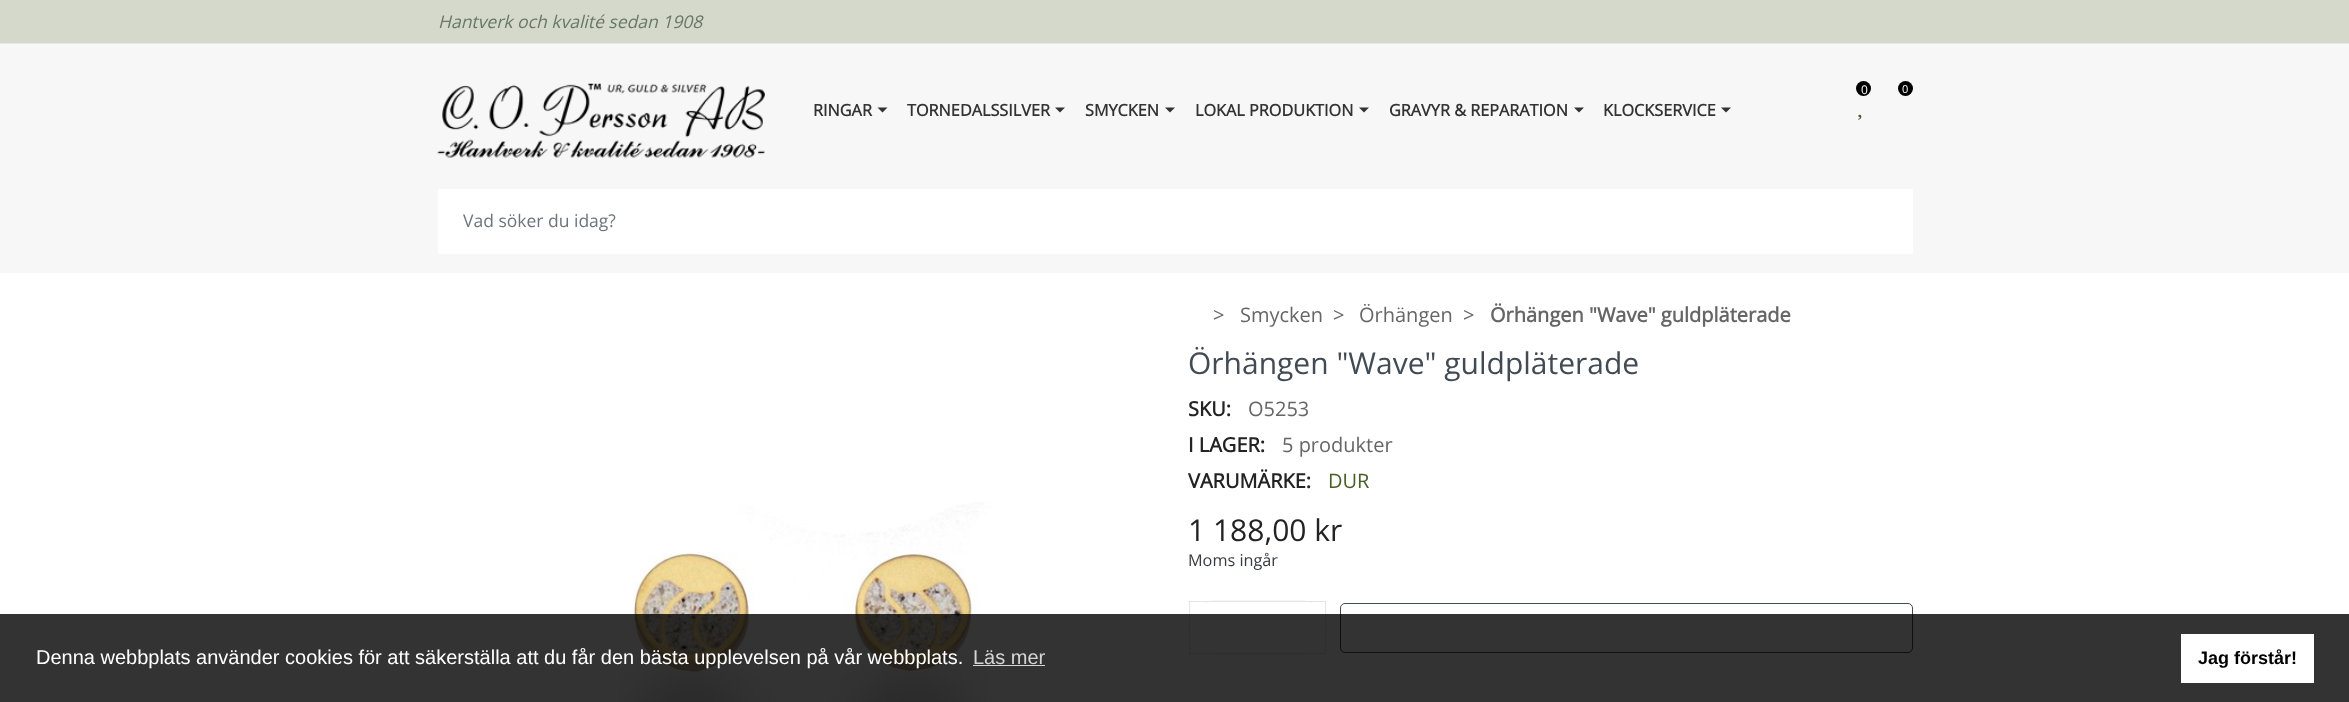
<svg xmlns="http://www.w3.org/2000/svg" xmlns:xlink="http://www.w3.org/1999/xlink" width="2349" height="702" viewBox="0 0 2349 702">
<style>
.cls-1{font:italic 17.5px Open Sans;fill:#69776a}
.cls-2{font:12px Open Sans;fill:#ffffff}
.cls-3{font:11px Open Sans;fill:#ffffff}
.cls-4{font:bold 16.25px Open Sans;fill:#333333}
.cls-5{font:17.5px Open Sans;fill:#6c757d}
.cls-6{font:20px Open Sans;fill:#666666}
.cls-7{font:bold 20px Open Sans;fill:#666666}
.cls-8{font:30px Open Sans;fill:#424b54}
.cls-9{font:bold 20px Open Sans;fill:#232323}
.cls-10{font:20px Open Sans;fill:#4a5f26}
.cls-11{font:30px Open Sans;fill:#232323}
.cls-12{font:16.25px Open Sans;fill:#363a42}
.cls-13{font:20px Liberation Sans;fill:#ffffff}
.cls-14{font:20px Liberation Sans;fill:#d6d6d6}
.cls-15{font:bold 18px Liberation Sans;fill:#000000}
</style>
<rect width="100%" height="100%" fill="#ffffff"/>
<rect fill="#d4d9cb" x="0" y="0" width="2349" height="43"/>
<rect fill="#e9e9e9" x="0" y="43" width="2349" height="1"/>
<rect fill="#f7f7f7" x="0" y="44" width="2349" height="229"/>
<image xlink:href="image0.png" x="437" y="83" width="328" height="75"/>
<circle fill="#000000" cx="1863.5" cy="88.5" r="7.5"/>
<image xlink:href="image1.png" x="1858" y="114" width="4" height="6"/>
<circle fill="#000000" cx="1905.5" cy="88.5" r="7.5"/>
<path fill="#333333" d="M877.5 107.5H887.5L882.5 112.5Z"/>
<path fill="#333333" d="M1055 107.5H1065L1060 112.5Z"/>
<path fill="#333333" d="M1165 107.5H1175L1170 112.5Z"/>
<path fill="#333333" d="M1359 107.5H1369L1364 112.5Z"/>
<path fill="#333333" d="M1574 107.5H1584L1579 112.5Z"/>
<path fill="#333333" d="M1721 107.5H1731L1726 112.5Z"/>
<rect fill="#ffffff" x="438" y="189" width="1475" height="65"/>
<rect fill="none" stroke="#f5f5f5" x="1188.5" y="600.5" width="139" height="54" rx="27"/>
<rect fill="none" stroke="#e5e5e5" x="1189.5" y="601.5" width="136" height="52"/>
<rect fill="#ffffff" x="1190" y="603" width="17" height="50"/>
<rect fill="#ffffff" x="1309" y="603" width="16" height="50"/>
<rect fill="none" stroke="#424b54" x="1340.5" y="603.5" width="572" height="49" rx="4.5"/>
<image xlink:href="image2.png" x="618" y="502" width="373" height="200"/>
<rect fill="#000000" fill-opacity="0.8" x="0" y="614" width="2349" height="88"/>
<rect fill="#d6d6d6" x="973" y="665" width="72" height="1"/>
<rect fill="#ffffff" x="2181" y="634" width="133" height="49"/>
<text class="cls-1" x="438" y="28">Hantverk och kvalité sedan 1908</text>
<text class="cls-2" x="1861" y="94">0</text>
<text class="cls-3" x="1902" y="93">0</text>
<text class="cls-4" x="813" y="116">RINGAR</text>
<text class="cls-4" x="907" y="116">TORNEDALSSILVER</text>
<text class="cls-4" x="1085" y="116">SMYCKEN</text>
<text class="cls-4" x="1195" y="116">LOKAL PRODUKTION</text>
<text class="cls-4" x="1389" y="116">GRAVYR &amp; REPARATION</text>
<text class="cls-4" x="1603" y="116">KLOCKSERVICE</text>
<text class="cls-5" x="463" y="227">Vad söker du idag?</text>
<text class="cls-6" x="1213" y="322">&gt;</text>
<text class="cls-6" x="1240" y="322">Smycken</text>
<text class="cls-6" x="1333" y="322">&gt;</text>
<text class="cls-6" x="1359" y="322">Örhängen</text>
<text class="cls-6" x="1463" y="322">&gt;</text>
<text class="cls-7" x="1490" y="322">Örhängen "Wave" guldpläterade</text>
<text class="cls-8" x="1188" y="374">Örhängen "Wave" guldpläterade</text>
<text class="cls-9" x="1188" y="416">SKU:</text>
<text class="cls-6" x="1248" y="416">O5253</text>
<text class="cls-9" x="1188" y="452">I LAGER:</text>
<text class="cls-6" x="1282" y="452">5 produkter</text>
<text class="cls-9" x="1188" y="488">VARUMÄRKE:</text>
<text class="cls-10" x="1328" y="488">DUR</text>
<text class="cls-11" x="1188" y="541">1 188,00 kr</text>
<text class="cls-12" x="1188" y="566">Moms ingår</text>
<text class="cls-13" x="36" y="664">Denna webbplats använder cookies för att säkerställa att du får den bästa upplevelsen på vår webbplats.</text>
<text class="cls-14" x="973" y="664">Läs mer</text>
<text class="cls-15" x="2198" y="664">Jag förstår!</text>
</svg>
